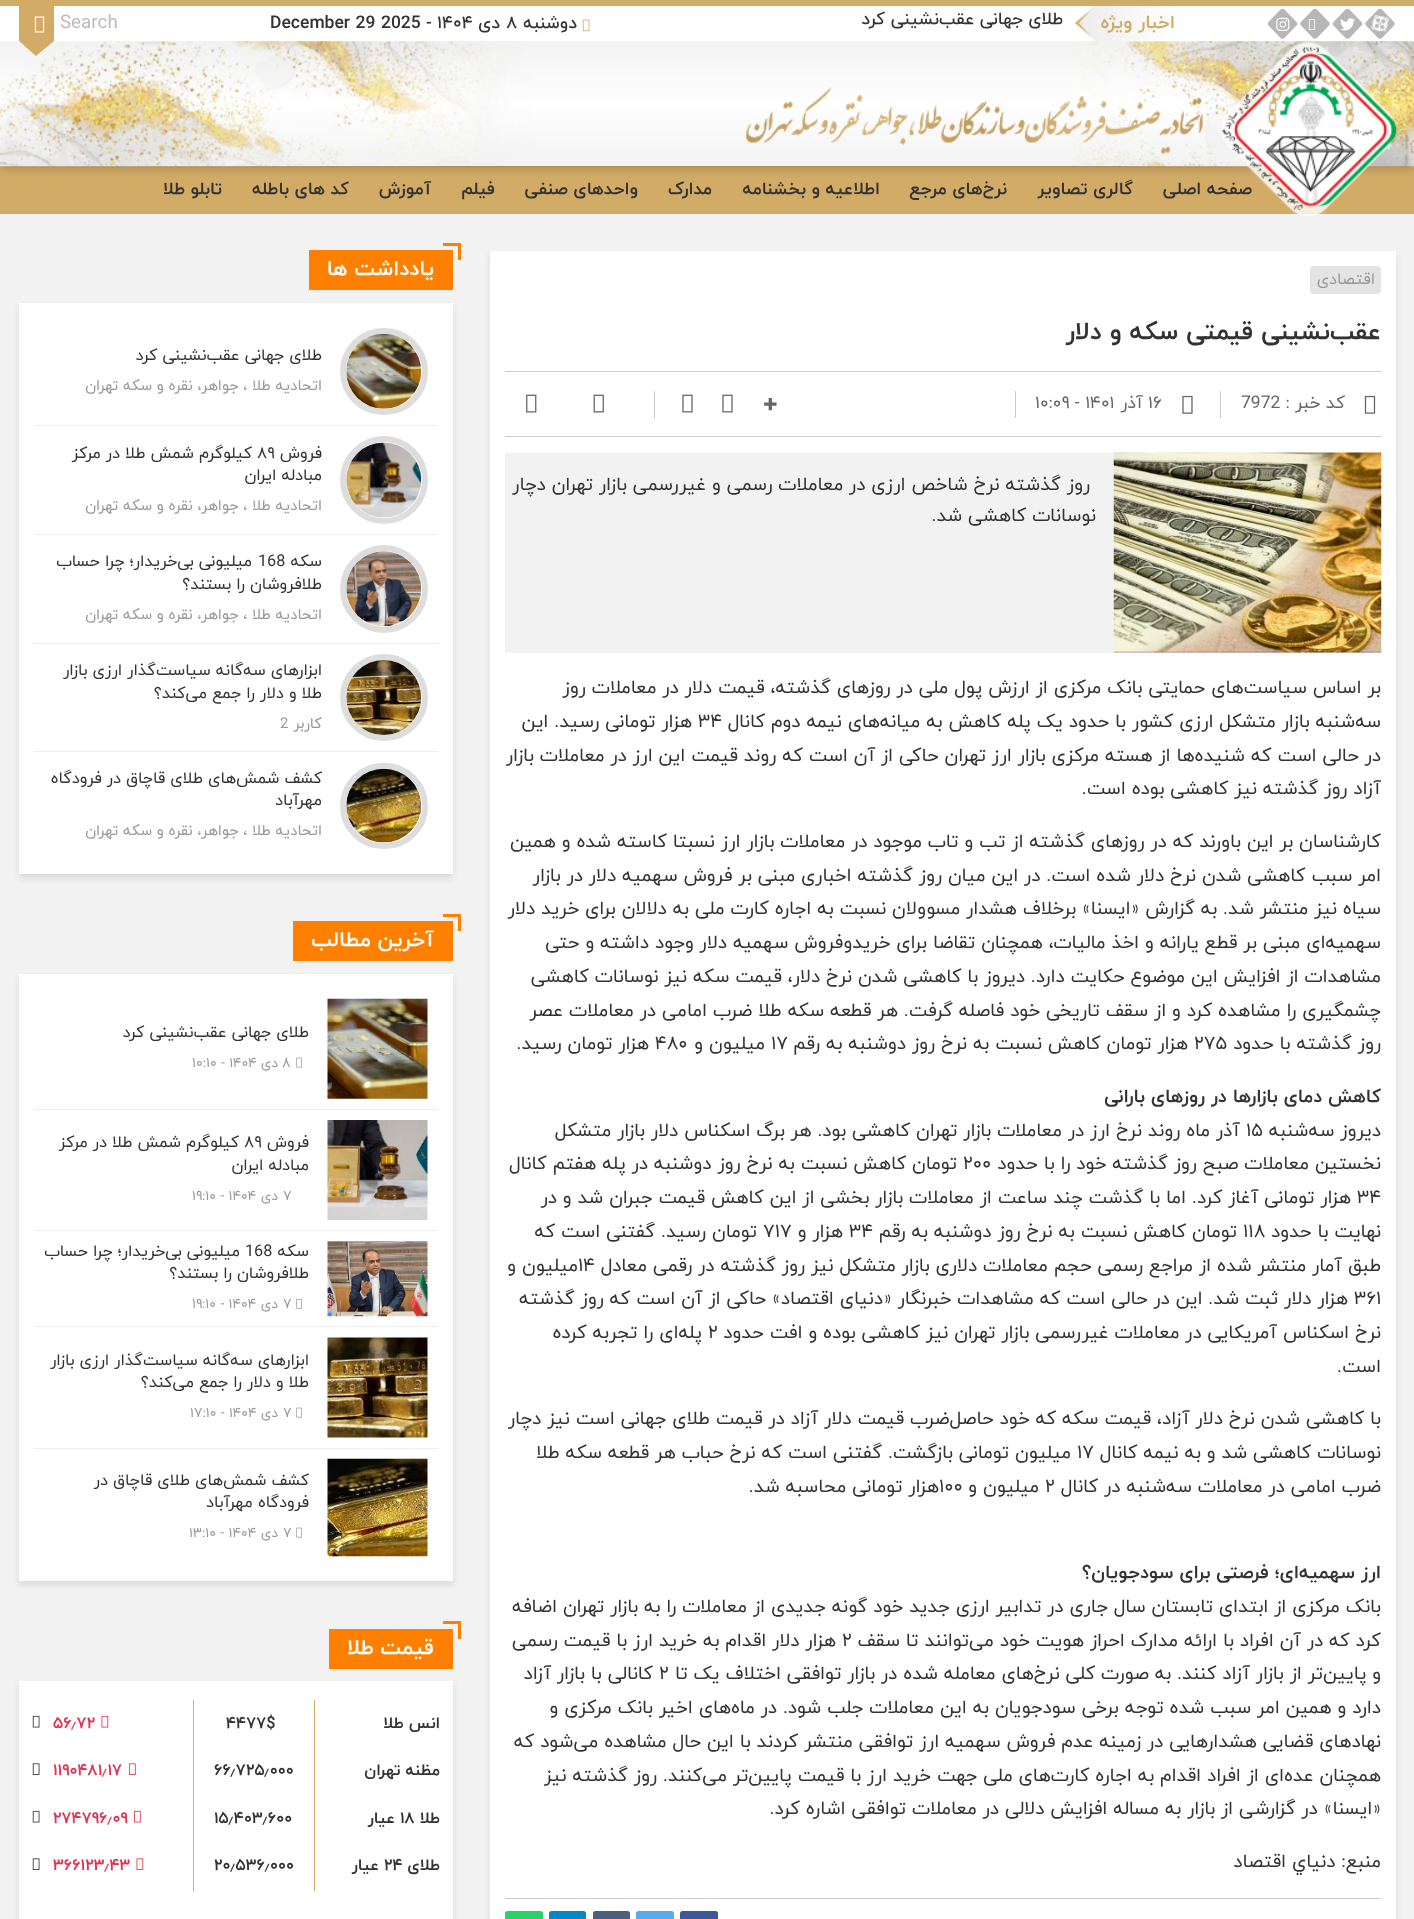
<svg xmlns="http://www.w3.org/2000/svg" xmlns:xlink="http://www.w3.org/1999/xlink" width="1414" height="1919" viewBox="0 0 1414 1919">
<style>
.cls-1{font:bold 18.75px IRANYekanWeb;direction:rtl;fill:#d2ab67}
.cls-2{font:500 17.5px IRANYekanWeb;direction:rtl;fill:#333333}
.cls-3{font:500 17.5px IRANYekanWeb;fill:#333333}
.cls-4{font:18.75px IRANYekanWeb;fill:#bbbbbb}
.cls-5{font:bold 17.5px IRANYekanWeb;direction:rtl;fill:#333333}
.cls-6{font:16.25px IRANYekanWeb;direction:rtl;fill:#999999}
.cls-7{font:bold 25px IRANYekanWeb;direction:rtl;fill:#333333}
.cls-8{font:17.5px IRANYekanWeb;direction:rtl;fill:#666666}
.cls-9{font:17.5px IRANYekanWeb;fill:#666666}
.cls-10{font:900 25px Noto Sans;fill:#666666}
.cls-11{font:18.75px IRANYekanWeb;direction:rtl;fill:#333333}
.cls-12{font:18.75px IRANYekanWeb;fill:#333333}
.cls-13{font:bold 18.75px IRANYekanWeb;direction:rtl;fill:#333333}
.cls-14{font:bold 21.25px IRANYekanWeb;direction:rtl;fill:#ffffff}
.cls-15{font:16.25px IRANYekanWeb;direction:rtl;fill:#333333}
.cls-16{font:15px IRANYekanWeb;direction:rtl;fill:#999999}
.cls-17{font:16.25px IRANYekanWeb;fill:#333333}
.cls-18{font:15px IRANYekanWeb;fill:#999999}
.cls-19{font:13.75px IRANYekanWeb;fill:#999999}
.cls-20{font:13.75px IRANYekanWeb;direction:rtl;fill:#999999}
.cls-21{font:bold 16.25px IRANYekanWeb;direction:rtl;fill:#333333}
.cls-22{font:bold 16.25px IRANYekanWeb;fill:#333333}
.cls-23{font:bold 16.25px IRANYekanWeb;fill:#e33250}
</style>
<defs>
<clipPath id="clip1"><path d="M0 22H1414V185H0ZM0 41H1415V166H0Z" clip-rule="evenodd"/></clipPath>
</defs>
<rect width="100%" height="100%" fill="#ffffff"/>
<rect fill="#d2ab67" x="0" y="166" width="1414" height="48"/>
<g clip-path="url(#clip1)">
<rect fill="#000000" fill-opacity="0.3" filter="blur(6px)" x="0" y="41" width="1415" height="125"/>
</g>
<rect fill="#ffffff" x="0" y="30" width="1414" height="11"/>
<rect fill="#d2ab67" x="0" y="0" width="1414" height="6"/>
<path fill="#b7b7b7" d="M1382 9.5L1394 22C1395 23 1395 24.5 1394 25.5L1382 38C1381 39 1379 39 1378 38L1366 25.5C1365 24.5 1365 23 1366 22L1378 9.5C1379 8.5 1381 8.5 1382 9.5Z"/>
<image xlink:href="image0.png" x="1371" y="15" width="18" height="17"/>
<path fill="#b7b7b7" d="M1349.5 9.5L1361.5 22C1362.5 23 1362.5 24.5 1361.5 25.5L1349.5 38C1348.5 39 1346.5 39 1345.5 38L1333.5 25.5C1332.5 24.5 1332.5 23 1333.5 22L1345.5 9.5C1346.5 8.5 1348.5 8.5 1349.5 9.5Z"/>
<image xlink:href="image1.png" x="1340" y="18" width="15" height="13"/>
<path fill="#b7b7b7" d="M1317 9.5L1329 22C1330 23 1330 24.5 1329 25.5L1317 38C1316 39 1314 39 1313 38L1301 25.5C1300 24.5 1300 23 1301 22L1313 9.5C1314 8.5 1316 8.5 1317 9.5Z"/>
<image xlink:href="image2.png" x="1308" y="19" width="8" height="11"/>
<path fill="#b7b7b7" d="M1284.5 9.5L1296.5 22C1297.5 23 1297.5 24.5 1296.5 25.5L1284.5 38C1283.5 39 1281.5 39 1280.5 38L1268.5 25.5C1267.5 24.5 1267.5 23 1268.5 22L1280.5 9.5C1281.5 8.5 1283.5 8.5 1284.5 9.5Z"/>
<image xlink:href="image3.png" x="1276" y="17" width="14" height="14"/>
<image xlink:href="image7.png" x="0" y="41" width="1414" height="126"/>
<image xlink:href="image4.png" x="1075" y="6" width="100" height="36"/>
<image xlink:href="image5.png" x="582" y="19" width="8" height="13"/>
<rect fill="#d2ab67" x="19" y="6" width="35" height="35"/>
<image xlink:href="image6.png" x="34" y="16" width="11" height="17"/>
<path fill="#d2ab67" d="M19 41H54L36 56Z"/>
<image xlink:href="image9.png" x="746" y="87" width="457" height="67"/>
<rect fill="#f2f2f2" x="0" y="214" width="1414" height="1705"/>
<rect fill="#000000" fill-opacity="0.1" filter="blur(3px)" x="490" y="255" width="906" height="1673"/>
<rect fill="#ffffff" x="490" y="251" width="906" height="1668"/>
<rect fill="#e4e4e4" x="1310" y="266" width="71" height="28" rx="4"/>
<rect fill="#cccccc" x="505" y="371" width="876" height="1"/>
<rect fill="#cccccc" x="505" y="436" width="876" height="1"/>
<rect fill="#cccccc" x="1220" y="391" width="1" height="27"/>
<image xlink:href="image10.png" x="1364" y="395" width="12" height="19"/>
<rect fill="#cccccc" x="1015" y="391" width="1" height="27"/>
<image xlink:href="image11.png" x="1182" y="395" width="11" height="19"/>
<image xlink:href="image12.png" x="722" y="394" width="11" height="19"/>
<image xlink:href="image12.png" x="682" y="394" width="11" height="19"/>
<rect fill="#cccccc" x="654" y="391" width="1" height="27"/>
<image xlink:href="image13.png" x="593" y="394" width="11" height="19"/>
<image xlink:href="image14.png" x="526" y="394" width="11" height="19"/>
<rect fill="#f2f2f2" x="505" y="453" width="876" height="200"/>
<image xlink:href="image15.png" x="1113" y="452" width="269" height="201"/>
<rect fill="#cccccc" x="505" y="1898" width="876" height="1"/>
<rect fill="#3b5999" x="680" y="1911" width="38" height="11" rx="2.5"/>
<rect fill="#55acee" x="636" y="1911" width="38" height="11" rx="2.5"/>
<rect fill="#4c5e7d" x="593" y="1911" width="37" height="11" rx="2.5"/>
<rect fill="#0088cc" x="549" y="1911" width="37" height="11" rx="2.5"/>
<rect fill="#25d366" x="505" y="1911" width="38" height="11" rx="2.5"/>
<rect fill="#000000" fill-opacity="0.1" filter="blur(3px)" x="19" y="306" width="434" height="572"/>
<rect fill="#ffffff" x="19" y="303" width="434" height="571"/>
<rect fill="#ff8000" x="309" y="250" width="144" height="40"/>
<rect fill="#ff8000" x="458" y="243" width="3" height="17"/>
<rect fill="#ff8000" x="443" y="243" width="15" height="3"/>
<rect fill="#eeeeee" x="34" y="425" width="404" height="1"/>
<rect fill="none" stroke="#dddddd" stroke-width="6" x="343" y="331" width="82" height="81" rx="40.5"/>
<image xlink:href="image16.png" x="346" y="333" width="76" height="76"/>
<rect fill="#eeeeee" x="34" y="534" width="404" height="1"/>
<circle fill="none" stroke="#dddddd" stroke-width="6" cx="384" cy="480" r="41"/>
<image xlink:href="image17.png" x="346" y="442" width="76" height="76"/>
<rect fill="#eeeeee" x="34" y="643" width="404" height="1"/>
<circle fill="none" stroke="#dddddd" stroke-width="6" cx="384" cy="589" r="41"/>
<image xlink:href="image18.png" x="346" y="551" width="76" height="76"/>
<rect fill="#eeeeee" x="34" y="751" width="404" height="1"/>
<rect fill="none" stroke="#dddddd" stroke-width="6" x="343" y="657" width="82" height="81" rx="40.5"/>
<image xlink:href="image19.png" x="346" y="660" width="76" height="75"/>
<rect fill="none" stroke="#dddddd" stroke-width="6" x="343" y="766" width="82" height="80" rx="40"/>
<image xlink:href="image20.png" x="346" y="768" width="76" height="75"/>
<rect fill="#000000" fill-opacity="0.1" filter="blur(3px)" x="19" y="978" width="434" height="607"/>
<rect fill="#ffffff" x="19" y="974" width="434" height="607"/>
<rect fill="#ff8000" x="293" y="921" width="160" height="40"/>
<rect fill="#ff8000" x="458" y="914" width="3" height="17"/>
<rect fill="#ff8000" x="443" y="914" width="15" height="3"/>
<rect fill="#eeeeee" x="34" y="1109" width="404" height="1"/>
<image xlink:href="image21.png" x="327" y="998" width="101" height="101"/>
<image xlink:href="image22.png" x="296" y="1057" width="6" height="11"/>
<rect fill="#eeeeee" x="34" y="1230" width="404" height="1"/>
<image xlink:href="image23.png" x="327" y="1120" width="101" height="100"/>
<rect fill="#eeeeee" x="34" y="1326" width="404" height="1"/>
<image xlink:href="image24.png" x="327" y="1241" width="101" height="76"/>
<image xlink:href="image25.png" x="296" y="1298" width="6" height="11"/>
<rect fill="#eeeeee" x="34" y="1448" width="404" height="1"/>
<image xlink:href="image26.png" x="327" y="1337" width="101" height="101"/>
<image xlink:href="image22.png" x="296" y="1407" width="6" height="11"/>
<image xlink:href="image27.png" x="327" y="1458" width="101" height="99"/>
<image xlink:href="image22.png" x="296" y="1527" width="6" height="11"/>
<rect fill="#000000" fill-opacity="0.1" filter="blur(3px)" x="19" y="1685" width="434" height="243"/>
<rect fill="#ffffff" x="19" y="1681" width="434" height="238"/>
<rect fill="#ff8000" x="329" y="1629" width="124" height="40"/>
<rect fill="#ff8000" x="458" y="1621" width="3" height="18"/>
<rect fill="#ff8000" x="443" y="1621" width="15" height="3"/>
<image xlink:href="image28.png" x="101" y="1715" width="8" height="13"/>
<image xlink:href="image29.png" x="32" y="1715" width="8" height="13"/>
<image xlink:href="image30.png" x="129" y="1763" width="7" height="12"/>
<image xlink:href="image31.png" x="32" y="1763" width="8" height="12"/>
<image xlink:href="image32.png" x="134" y="1810" width="7" height="13"/>
<image xlink:href="image29.png" x="32" y="1810" width="8" height="13"/>
<rect fill="#d2ab67" x="314" y="1700" width="1" height="191"/>
<rect fill="#d2ab67" x="193" y="1700" width="1" height="191"/>
<image xlink:href="image33.png" x="136" y="1858" width="8" height="12"/>
<image xlink:href="image31.png" x="32" y="1858" width="8" height="12"/>
<text class="cls-1" x="1175" y="28">اخبار ویژه</text>
<text class="cls-2" x="1063" y="24">طلای جهانی عقب‌نشینی کرد</text>
<text class="cls-2" x="577" y="28">دوشنبه</text>
<text class="cls-3" x="506" y="28">۸</text>
<text class="cls-2" x="500" y="28">دی</text>
<text class="cls-3" x="437" y="28">۱۴۰۴</text>
<text class="cls-3" x="426" y="28">-</text>
<text class="cls-3" x="270" y="28">December 29 2025</text>
<text class="cls-4" x="60" y="28">Search</text>
<text class="cls-5" x="1252" y="194">صفحه اصلی</text>
<image xlink:href="image8.png" x="1221" y="42" width="176" height="174"/>
<text class="cls-5" x="1133" y="194">گالری تصاویر</text>
<text class="cls-5" x="1007" y="194">نرخ‌های مرجع</text>
<text class="cls-5" x="880" y="194">اطلاعیه و بخشنامه</text>
<text class="cls-5" x="712" y="194">مدارک</text>
<text class="cls-5" x="638" y="194">واحد‌های صنفی</text>
<text class="cls-5" x="495" y="194">فیلم</text>
<text class="cls-5" x="431" y="194">آموزش</text>
<text class="cls-5" x="349" y="194">کد های باطله</text>
<text class="cls-5" x="222" y="194">تابلو طلا</text>
<text class="cls-6" x="1375" y="284">اقتصادی</text>
<text class="cls-7" x="1381" y="339">عقب‌نشینی قیمتی سکه و دلار</text>
<text class="cls-8" x="1345" y="408">کد خبر :</text>
<text class="cls-9" x="1241" y="408">7972</text>
<text class="cls-9" x="1148" y="408">۱۶</text>
<text class="cls-8" x="1143" y="408">آذر</text>
<text class="cls-9" x="1035" y="408">۱۰:۰۹ - ۱۴۰۱</text>
<text class="cls-10" x="763" y="413">+</text>
<text class="cls-11" x="1090" y="490">روز گذشته نرخ شاخص ارزی در معاملات رسمی و غیررسمی بازار تهران دچار</text>
<text class="cls-11" x="1096" y="521">نوسانات کاهشی شد.</text>
<text class="cls-11"><tspan x="1381" y="693">بر اساس سیاست‌های حمایتی بانک مرکزی از ارزش پول ملی در روز‌های گذشته، قیمت دلار در معاملات روز</tspan><tspan x="1381" y="727">سه‌شنبه بازار متشکل ارزی کشور با حدود یک پله کاهش به میانه‌های نیمه دوم کانال</tspan></text>
<text class="cls-12" x="698" y="727">۳۴</text>
<text class="cls-11" x="692" y="727">هزار تومانی رسید. این</text>
<text class="cls-11"><tspan x="1381" y="761">در حالی است که شنیده‌ها از هسته مرکزی بازار ارز تهران حاکی از آن است که روند قیمت این ارز در معاملات بازار</tspan><tspan x="1381" y="794">آزاد روز گذشته نیز کاهشی بوده است.</tspan></text>
<text class="cls-11"><tspan x="1381" y="847">کارشناسان بر این باورند که در روز‌های گذشته از تب و تاب موجود در معاملات بازار ارز نسبتا کاسته شده و همین</tspan><tspan x="1381" y="881">امر سبب کاهشی شدن نرخ دلار شده است. در این میان روز گذشته اخباری مبنی بر فروش سهمیه دلار در بازار</tspan><tspan x="1381" y="914">سیاه نیز منتشر شد. به گزارش «ایسنا» برخلاف هشدار مسوولان نسبت به اجاره کارت ملی به دلالان برای خرید دلار</tspan><tspan x="1381" y="948">سهمیه‌ای مبنی بر قطع یارانه و اخذ مالیات، همچنان تقاضا برای خریدوفروش سهمیه دلار وجود داشته و حتی</tspan><tspan x="1381" y="982">مشاهدات از افزایش این موضوع حکایت دارد. دیروز با کاهشی شدن نرخ دلار، قیمت سکه نیز نوسانات کاهشی</tspan><tspan x="1381" y="1016">چشمگیری را مشاهده کرد و از سقف تاریخی خود فاصله گرفت. هر قطعه سکه طلا ضرب امامی در معاملات عصر</tspan><tspan x="1381" y="1049">روز گذشته با حدود</tspan></text>
<text class="cls-12" x="1194" y="1049">۲۷۵</text>
<text class="cls-11" x="1188" y="1049">هزار تومان کاهش نسبت به نرخ روز دوشنبه به رقم</text>
<text class="cls-12" x="771" y="1049">۱۷</text>
<text class="cls-11" x="765" y="1049">میلیون و</text>
<text class="cls-12" x="655" y="1049">۴۸۰</text>
<text class="cls-11" x="649" y="1049">هزار تومان رسید.</text>
<text class="cls-13" x="1381" y="1102">کاهش دمای بازار‌ها در روز‌های بارانی</text>
<text class="cls-11" x="1381" y="1136">دیروز سه‌شنبه</text>
<text class="cls-12" x="1246" y="1136">۱۵</text>
<text class="cls-11" x="1240" y="1136">آذر ماه روند نرخ ارز در معاملات بازار تهران کاهشی بود. هر برگ اسکناس دلار بازار متشکل</text>
<text class="cls-11" x="1381" y="1169">نخستین معاملات صبح روز گذشته خود را با حدود</text>
<text class="cls-12" x="963" y="1169">۲۰۰</text>
<text class="cls-11" x="957" y="1169">تومان کاهش نسبت به نرخ روز دوشنبه در پله هفتم کانال</text>
<text class="cls-12" x="1357" y="1203">۳۴</text>
<text class="cls-11" x="1351" y="1203">هزار تومانی آغاز کرد. اما با گذشت چند ساعت از معاملات بازار بخشی از این کاهش قیمت جبران شد و در</text>
<text class="cls-11" x="1381" y="1237">نهایت با حدود</text>
<text class="cls-12" x="1243" y="1237">۱۱۸</text>
<text class="cls-11" x="1237" y="1237">تومان کاهش نسبت به نرخ روز دوشنبه به رقم</text>
<text class="cls-12" x="849" y="1237">۳۴</text>
<text class="cls-11" x="843" y="1237">هزار و</text>
<text class="cls-12" x="763" y="1237">۷۱۷</text>
<text class="cls-11" x="757" y="1237">تومان رسید. گفتنی است که</text>
<text class="cls-11" x="1381" y="1271">طبق آمار منتشر شده از مراجع رسمی حجم معاملات دلاری بازار متشکل نیز روز گذشته در رقمی معادل</text>
<text class="cls-12" x="578" y="1271">۱۴</text>
<text class="cls-11" x="578" y="1271">میلیون و</text>
<text class="cls-12" x="1354" y="1304">۳۶۱</text>
<text class="cls-11" x="1348" y="1304">هزار دلار ثبت شد. این در حالی است که مشاهدات خبرنگار «دنیای اقتصاد» حاکی از آن است که روز گذشته</text>
<text class="cls-11" x="1381" y="1338">نرخ اسکناس آمریکایی در معاملات غیررسمی بازار تهران نیز کاهشی بوده و افت حدود</text>
<text class="cls-12" x="708" y="1338">۲</text>
<text class="cls-11" x="702" y="1338">پله‌ای را تجربه کرده</text>
<text class="cls-11" x="1381" y="1372">است.</text>
<text class="cls-11"><tspan x="1381" y="1424">با کاهشی شدن نرخ دلار آزاد، قیمت سکه که خود حاصل‌ضرب قیمت دلار آزاد در قیمت طلای جهانی است نیز دچار</tspan><tspan x="1381" y="1458">نوسانات کاهشی شد و به نیمه کانال</tspan></text>
<text class="cls-12" x="1077" y="1458">۱۷</text>
<text class="cls-11" x="1071" y="1458">میلیون تومانی بازگشت. گفتنی است که نرخ حباب هر قطعه سکه طلا</text>
<text class="cls-11" x="1381" y="1492">ضرب امامی در معاملات سه‌شنبه در کانال</text>
<text class="cls-12" x="1045" y="1492">۲</text>
<text class="cls-11" x="1039" y="1492">میلیون و</text>
<text class="cls-12" x="939" y="1492">۱۰۰</text>
<text class="cls-11" x="939" y="1492">هزار تومانی محاسبه شد.</text>
<text class="cls-13" x="1381" y="1578">ارز سهمیه‌ای؛ فرصتی برای سودجویان‌؟</text>
<text class="cls-11"><tspan x="1381" y="1612">بانک مرکزی از ابتدای تابستان سال جاری در تدابیر ارزی جدید خود گونه جدیدی از معاملات را به بازار تهران اضافه</tspan><tspan x="1381" y="1646">کرد که در آن افراد با ارائه مدارک احراز هویت خود می‌توانند تا سقف</tspan></text>
<text class="cls-12" x="842" y="1646">۲</text>
<text class="cls-11" x="836" y="1646">هزار دلار اقدام به خرید ارز با قیمت رسمی</text>
<text class="cls-11" x="1381" y="1679">و پایین‌تر از بازار آزاد کنند. به صورت کلی نرخ‌های معامله شده در بازار توافقی اختلاف یک تا</text>
<text class="cls-12" x="659" y="1679">۲</text>
<text class="cls-11" x="653" y="1679">کانالی با بازار آزاد</text>
<text class="cls-11"><tspan x="1381" y="1713">دارد و همین امر سبب شده توجه برخی سودجویان به این معاملات جلب شود. در ماه‌های اخیر بانک مرکزی و</tspan><tspan x="1381" y="1747">نهاد‌های قضایی هشدار‌هایی در زمینه عدم فروش سهمیه ارز توافقی منتشر کردند با این حال مشاهده می‌شود که</tspan><tspan x="1381" y="1781">همچنان عده‌ای از افراد اقدام به اجاره کارت‌های ملی جهت خرید ارز با قیمت پایین‌تر می‌کنند. روز گذشته نیز</tspan><tspan x="1381" y="1814">«ایسنا» در گزارشی از بازار به مساله افزایش دلالی در معاملات توافقی اشاره کرد.</tspan></text>
<text class="cls-11" x="1381" y="1867">منبع: دنياي اقتصاد</text>
<text class="cls-14" x="434" y="275">یادداشت ها</text>
<text class="cls-15" x="322" y="360">طلای جهانی عقب‌نشینی کرد</text>
<text class="cls-16" x="322" y="390">اتحادیه طلا ، جواهر، نقره و سکه تهران</text>
<text class="cls-15" x="322" y="458">فروش</text>
<text class="cls-17" x="257" y="458">۸۹</text>
<text class="cls-15" x="252" y="458">کیلوگرم شمش طلا در مرکز</text>
<text class="cls-15" x="322" y="480">مبادله ایران</text>
<text class="cls-16" x="322" y="510">اتحادیه طلا ، جواهر، نقره و سکه تهران</text>
<text class="cls-15" x="322" y="566">سکه</text>
<text class="cls-17" x="258" y="566">168</text>
<text class="cls-15" x="252" y="566">میلیونی بی‌خریدار؛ چرا حساب</text>
<text class="cls-15" x="322" y="589">طلافروشان را بستند؟</text>
<text class="cls-16" x="322" y="619">اتحادیه طلا ، جواهر، نقره و سکه تهران</text>
<text class="cls-15"><tspan x="322" y="675">ابزارهای سه‌گانه سیاست‌گذار ارزی بازار</tspan><tspan x="322" y="698">طلا و دلار را جمع می‌کند؟</tspan></text>
<text class="cls-16" x="322" y="728">کاربر</text>
<text class="cls-18" x="280" y="728">2</text>
<text class="cls-15"><tspan x="322" y="783">کشف شمش‌های طلای قاچاق در فرودگاه</tspan><tspan x="322" y="805">مهرآباد</tspan></text>
<text class="cls-16" x="322" y="835">اتحادیه طلا ، جواهر، نقره و سکه تهران</text>
<text class="cls-14" x="434" y="946">آخرین مطالب</text>
<text class="cls-15" x="309" y="1037">طلای جهانی عقب‌نشینی کرد</text>
<text class="cls-19" x="282" y="1067">۸</text>
<text class="cls-20" x="278" y="1067">دی</text>
<text class="cls-19" x="192" y="1067">۱۰:۱۰ - ۱۴۰۴</text>
<text class="cls-15" x="309" y="1147">فروش</text>
<text class="cls-17" x="244" y="1147">۸۹</text>
<text class="cls-15" x="239" y="1147">کیلوگرم شمش طلا در مرکز</text>
<text class="cls-15" x="309" y="1170">مبادله ایران</text>
<text class="cls-19" x="283" y="1200">۷</text>
<text class="cls-20" x="278" y="1200">دی</text>
<text class="cls-19" x="192" y="1200">۱۹:۱۰ - ۱۴۰۴</text>
<text class="cls-15" x="309" y="1256">سکه</text>
<text class="cls-17" x="245" y="1256">168</text>
<text class="cls-15" x="240" y="1256">میلیونی بی‌خریدار؛ چرا حساب</text>
<text class="cls-15" x="309" y="1278">طلافروشان را بستند؟</text>
<text class="cls-19" x="283" y="1308">۷</text>
<text class="cls-20" x="278" y="1308">دی</text>
<text class="cls-19" x="192" y="1308">۱۹:۱۰ - ۱۴۰۴</text>
<text class="cls-15"><tspan x="309" y="1365">ابزارهای سه‌گانه سیاست‌گذار ارزی بازار</tspan><tspan x="309" y="1387">طلا و دلار را جمع می‌کند؟</tspan></text>
<text class="cls-19" x="283" y="1417">۷</text>
<text class="cls-20" x="278" y="1417">دی</text>
<text class="cls-19" x="190" y="1417">۱۷:۱۰ - ۱۴۰۴</text>
<text class="cls-15"><tspan x="309" y="1485">کشف شمش‌های طلای قاچاق در</tspan><tspan x="309" y="1507">فرودگاه مهرآباد</tspan></text>
<text class="cls-19" x="283" y="1537">۷</text>
<text class="cls-20" x="278" y="1537">دی</text>
<text class="cls-19" x="189" y="1537">۱۳:۱۰ - ۱۴۰۴</text>
<text class="cls-14" x="434" y="1654">قیمت طلا</text>
<text class="cls-21" x="440" y="1728">انس طلا</text>
<text class="cls-22" x="226" y="1728">۴۴۷۷$</text>
<text class="cls-23" x="53" y="1728">۵۶٫۷۲</text>
<text class="cls-21" x="440" y="1775">مظنه تهران</text>
<text class="cls-22" x="214" y="1775">۶۶٫۷۲۵٫۰۰۰</text>
<text class="cls-23" x="53" y="1775">۱۱۹۰۴۸۱٫۱۷</text>
<text class="cls-21" x="440" y="1823">طلا</text>
<text class="cls-22" x="400" y="1823">۱۸</text>
<text class="cls-21" x="395" y="1823">عیار</text>
<text class="cls-22" x="214" y="1823">۱۵٫۴۰۳٫۶۰۰</text>
<text class="cls-23" x="53" y="1823">۲۷۴۷۹۶٫۰۹</text>
<text class="cls-21" x="440" y="1870">طلای</text>
<text class="cls-22" x="384" y="1870">۲۴</text>
<text class="cls-21" x="379" y="1870">عیار</text>
<text class="cls-22" x="214" y="1870">۲۰٫۵۳۶٫۰۰۰</text>
<text class="cls-23" x="53" y="1870">۳۶۶۱۲۳٫۴۳</text>
</svg>
